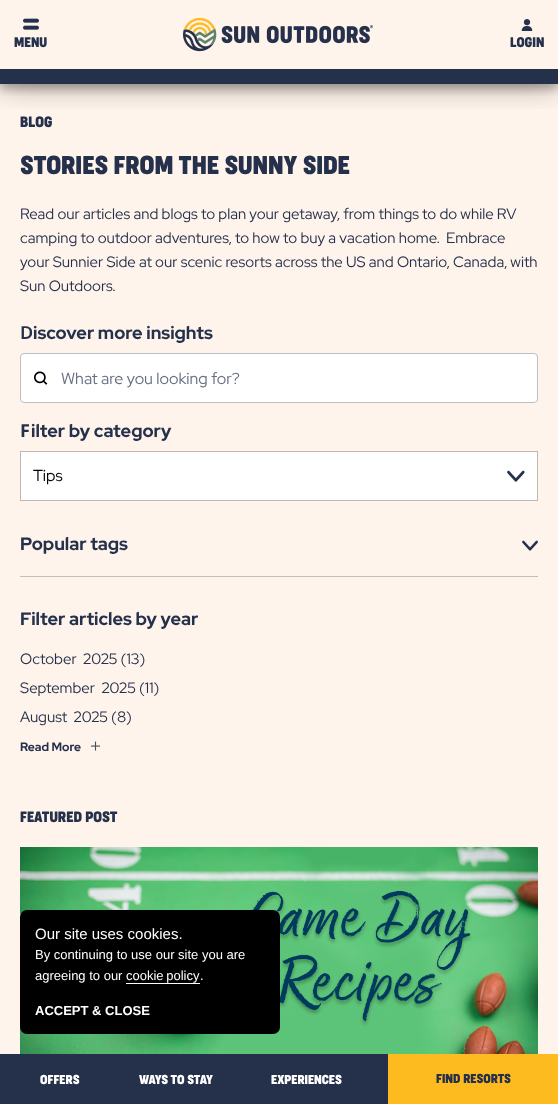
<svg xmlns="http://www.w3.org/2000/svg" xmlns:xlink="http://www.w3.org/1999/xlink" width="558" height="1104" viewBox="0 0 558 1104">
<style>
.cls-1{font:bold 13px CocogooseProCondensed;fill:#25314b}
.cls-2{font:bold 14px CocogooseProCondensed;fill:#25314b}
.cls-3{font:bold 24px CocogooseProCondensed;fill:#25314b}
.cls-4{font:15px Red Hat Display;fill:#25314b}
.cls-5{font:600 18px Noto Sans;fill:#25314b}
.cls-6{font:bold 18px Red Hat Display;fill:#25314b}
.cls-7{font:16px Red Hat Display;fill:#666f81}
.cls-8{font:bold 18px Noto Sans;fill:#25314b}
.cls-9{font:16px Red Hat Display;fill:#000000}
.cls-10{font:bold 12px Red Hat Display;fill:#25314b}
.cls-11{font:bold 12px CocogooseProCondensed;fill:#ffffff}
.cls-12{font:bold 12px CocogooseProCondensed;fill:#25314b}
.cls-13{font:15px Liberation Sans;fill:#ffffff}
.cls-14{font:13px Liberation Sans;fill:#ffffff}
.cls-15{font:bold 13px Liberation Sans;fill:#ffffff}
</style>
<defs>
<clipPath id="clip1"><rect x="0" y="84" width="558" height="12"/></clipPath>
<clipPath id="clip2"><rect x="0" y="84" width="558" height="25"/></clipPath>
</defs>
<rect width="100%" height="100%" fill="#fff4ec"/>
<g clip-path="url(#clip1)">
<rect fill="#000000" fill-opacity="0.24" filter="blur(5px)" x="0" y="5" width="558" height="84"/>
</g>
<g clip-path="url(#clip2)">
<rect fill="#000000" fill-opacity="0.4" filter="blur(15px)" x="0" y="0" width="558" height="84"/>
</g>
<rect fill="#25314b" x="0" y="69" width="558" height="15"/>
<image xlink:href="image0.png" x="23" y="18" width="16" height="12"/>
<image xlink:href="image1.png" x="183" y="17" width="190" height="35"/>
<image xlink:href="image2.png" x="521" y="19" width="12" height="12"/>
<rect fill="#ffffff" stroke="#bfbfbf" x="20.5" y="353.5" width="517" height="49" rx="3.5"/>
<image xlink:href="image3.png" x="34" y="371" width="14" height="14"/>
<rect fill="#ffffff" x="21" y="452" width="516" height="48"/>
<image xlink:href="image4.png" x="507" y="470" width="18" height="12"/>
<rect fill="none" stroke="#beb9b5" x="20.5" y="451.5" width="517" height="49"/>
<rect fill="#bfbfbf" x="20" y="576" width="518" height="1"/>
<image xlink:href="image5.png" x="522" y="540" width="16" height="11"/>
<image xlink:href="image6.png" x="91" y="741" width="9" height="10"/>
<image xlink:href="image7.png" x="20" y="847" width="518" height="207"/>
<rect fill="#25314b" x="0" y="1054" width="388" height="50"/>
<rect fill="#febb1f" x="388" y="1054" width="170" height="50"/>
<rect fill="#000000" x="20" y="910" width="260" height="124" rx="7"/>
<rect fill="#ffffff" x="126" y="983" width="74" height="1"/>
<text class="cls-1" x="14" y="47">MENU</text>
<text class="cls-1" x="510" y="47">LOGIN</text>
<text class="cls-2" x="20" y="127">BLOG</text>
<text class="cls-3" x="20" y="174">STORIES FROM THE SUNNY SIDE</text>
<text class="cls-4" xml:space="preserve"><tspan x="20" y="219">Read our articles and blogs to plan your getaway, from things to do while RV</tspan><tspan x="20" y="243">camping to outdoor adventures, to how to buy a vacation home.  Embrace</tspan><tspan x="20" y="267">your Sunnier Side at our scenic resorts across the US and Ontario, Canada, with</tspan><tspan x="20" y="291">Sun Outdoors.</tspan></text>
<text class="cls-5" x="20" y="339">D</text>
<text class="cls-6" x="33" y="339">iscover more insights</text>
<text class="cls-7" x="61" y="384">What are you looking for?</text>
<text class="cls-8" x="20" y="437">F</text>
<text class="cls-6" x="31" y="437">ilter by category</text>
<text class="cls-9" x="33" y="481">Tips</text>
<text class="cls-6" x="20" y="550">Popular tags</text>
<text class="cls-6" x="20" y="625">Filter articles by year</text>
<text class="cls-4" xml:space="preserve"><tspan x="20" y="664">October  2025 (13)</tspan><tspan x="20" y="693">September  2025 (11)</tspan><tspan x="20" y="722">August  2025 (8)</tspan></text>
<text class="cls-10" x="20" y="751">Read More</text>
<text class="cls-2" x="20" y="822">FEATURED POST</text>
<text class="cls-11" x="40" y="1084">OFFERS</text>
<text class="cls-11" x="139" y="1084">WAYS TO STAY</text>
<text class="cls-11" x="271" y="1084">EXPERIENCES</text>
<text class="cls-12" x="436" y="1083">FIND RESORTS</text>
<text class="cls-13" x="35" y="939">Our site uses cookies.</text>
<text class="cls-14"><tspan x="35" y="959">By continuing to use our site you are</tspan><tspan x="35" y="980">agreeing to our</tspan></text>
<text class="cls-14" x="126" y="980" word-spacing="-1">cookie policy</text>
<text class="cls-14" x="200" y="980">.</text>
<text class="cls-15" x="35" y="1015">ACCEPT &amp; CLOSE</text>
</svg>
